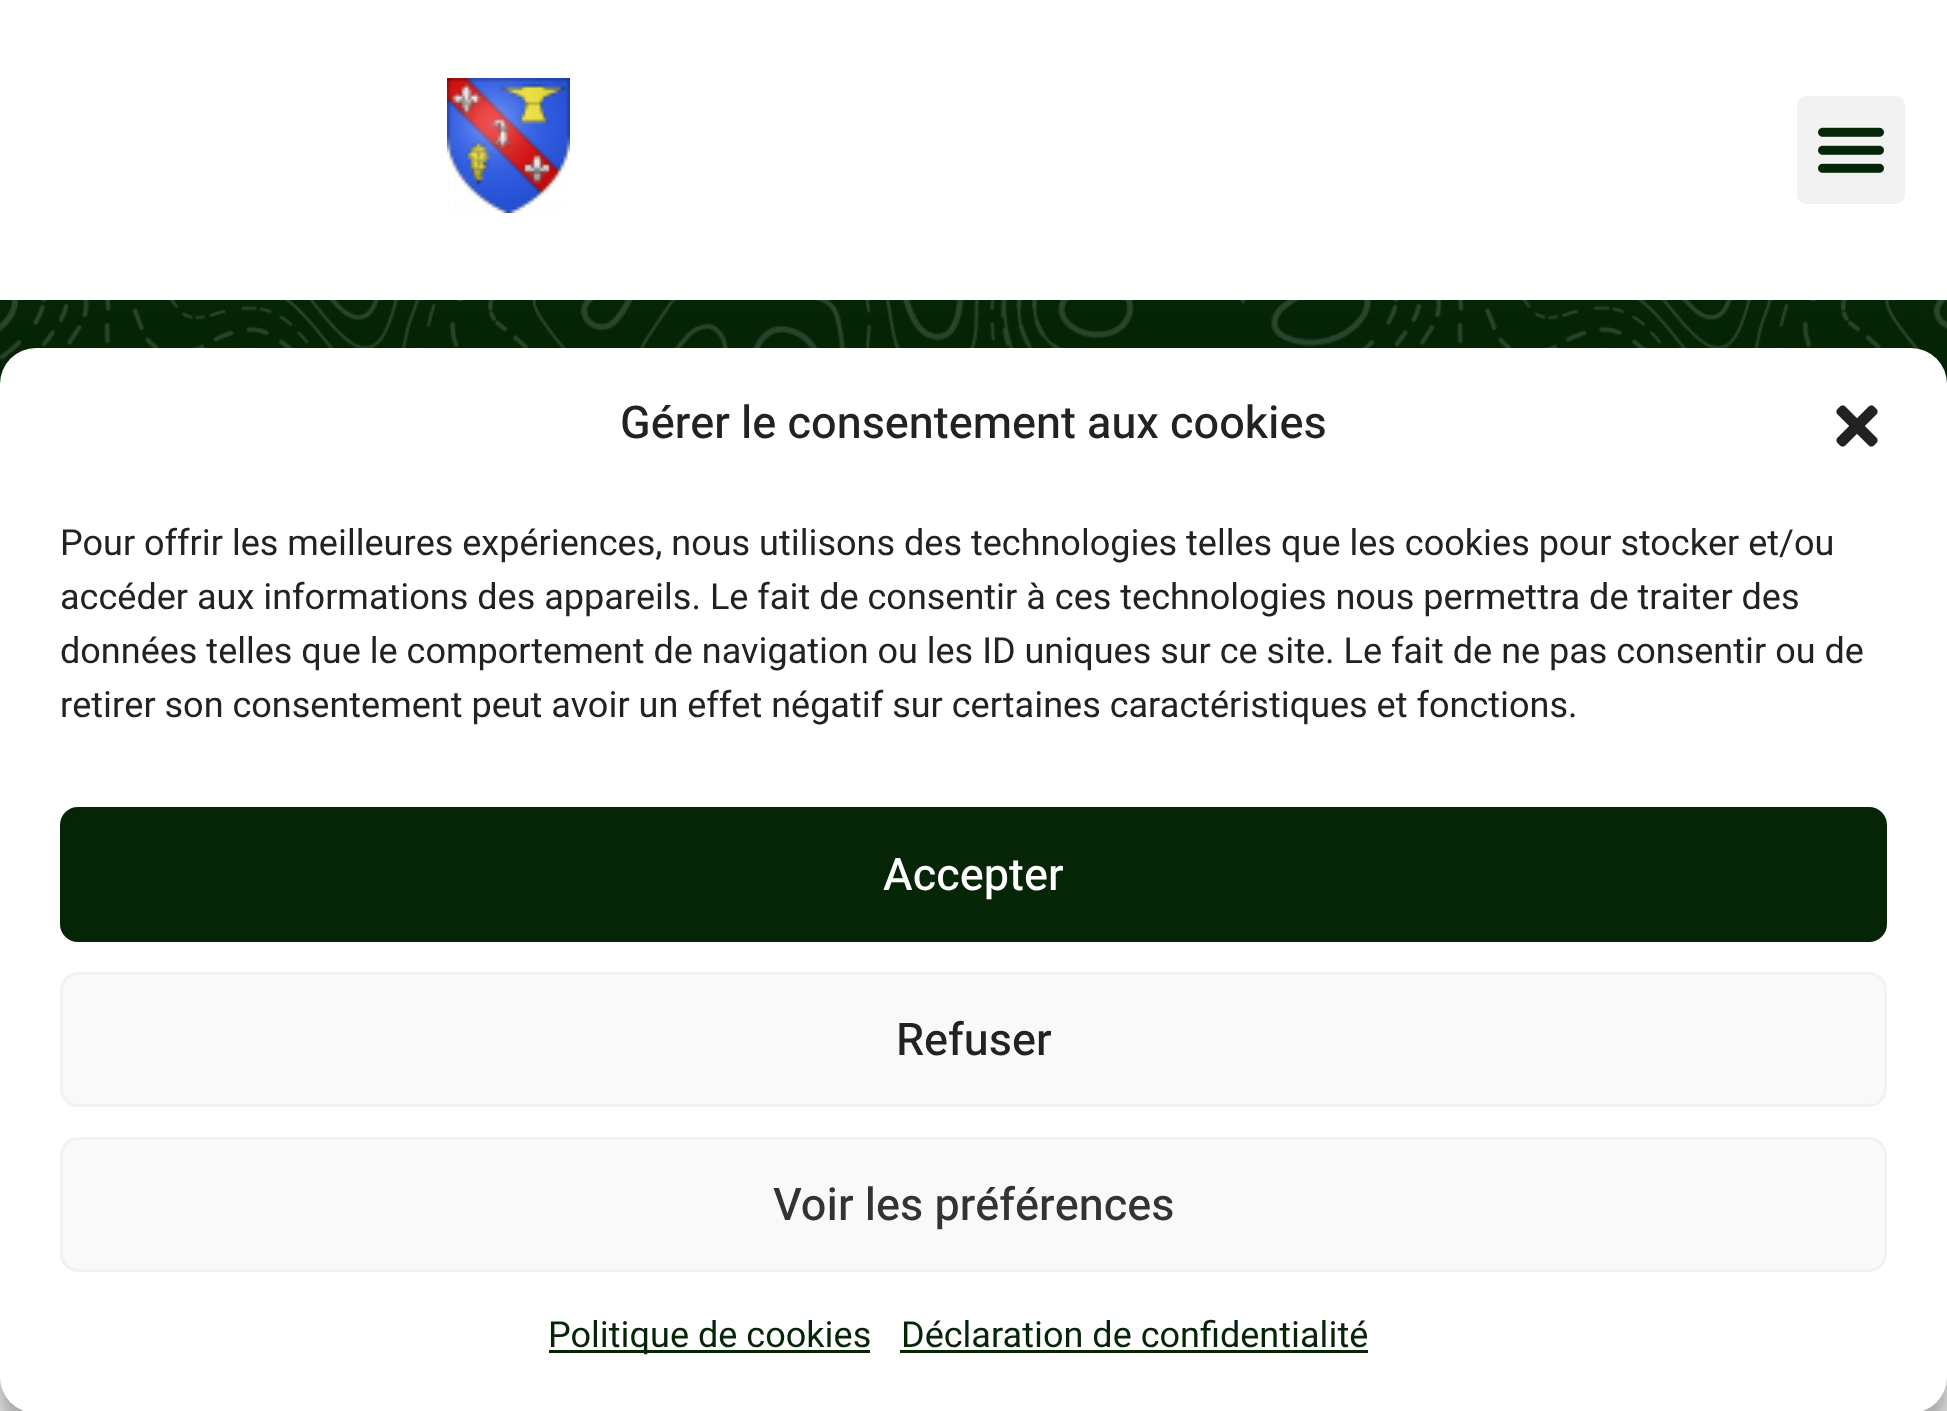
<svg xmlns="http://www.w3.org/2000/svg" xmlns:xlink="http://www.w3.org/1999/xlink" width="1947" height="1411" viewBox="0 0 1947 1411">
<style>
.cls-1{font:500 45px Heebo;fill:#222222}
.cls-2{font:36px Heebo;fill:#222222}
.cls-3{font:500 45px Heebo;fill:#ffffff}
.cls-4{font:500 45px Heebo;fill:#333333}
.cls-5{font:36px Heebo;fill:#052506}
</style>
<rect width="100%" height="100%" fill="#ffffff"/>
<image xlink:href="image0.png" x="447" y="78" width="123" height="135"/>
<rect fill="#f2f2f2" x="1797" y="96" width="108" height="108" rx="9"/>
<image xlink:href="image1.png" x="1818" y="127" width="66" height="46"/>
<rect fill="#052506" x="0" y="300" width="1947" height="84"/>
<image xlink:href="image2.png" x="0" y="300" width="1947" height="84"/>
<rect fill="#f4f6f4" x="0" y="1377" width="1947" height="34"/>
<rect fill="#000000" fill-opacity="0.23" filter="blur(9px)" x="0" y="366" width="1947" height="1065" rx="36"/>
<rect fill="#000000" fill-opacity="0.19" filter="blur(30px)" x="0" y="378" width="1947" height="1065" rx="36"/>
<rect fill="#ffffff" x="0" y="348" width="1947" height="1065" rx="36"/>
<image xlink:href="image3.png" x="1836" y="405" width="42" height="42"/>
<rect fill="#052506" stroke="#052506" stroke-width="3" x="61.5" y="808.5" width="1824" height="132" rx="16.5"/>
<rect fill="#f9f9f9" stroke="#f2f2f2" stroke-width="3" x="61.5" y="973.5" width="1824" height="132" rx="16.5"/>
<rect fill="#f9f9f9" stroke="#f2f2f2" stroke-width="3" x="61.5" y="1138.5" width="1824" height="132" rx="16.5"/>
<rect fill="#052506" x="549" y="1350" width="321" height="3"/>
<rect fill="#052506" x="900" y="1350" width="468" height="3"/>
<text class="cls-1" x="620" y="438">Gérer le consentement aux cookies</text>
<text class="cls-2"><tspan x="60" y="555">Pour offrir les meilleures expériences, nous utilisons des technologies telles que les cookies pour stocker et/ou</tspan><tspan x="60" y="609">accéder aux informations des appareils. Le fait de consentir à ces technologies nous permettra de traiter des</tspan><tspan x="60" y="663">données telles que le comportement de navigation ou les ID uniques sur ce site. Le fait de ne pas consentir ou de</tspan><tspan x="60" y="717">retirer son consentement peut avoir un effet négatif sur certaines caractéristiques et fonctions.</tspan></text>
<text class="cls-3" x="883" y="890">Accepter</text>
<text class="cls-1" x="896" y="1055">Refuser</text>
<text class="cls-4" x="773" y="1220">Voir les préférences</text>
<text class="cls-5" x="548" y="1347">Politique de cookies</text>
<text class="cls-5" x="901" y="1347">Déclaration de confidentialité</text>
</svg>
